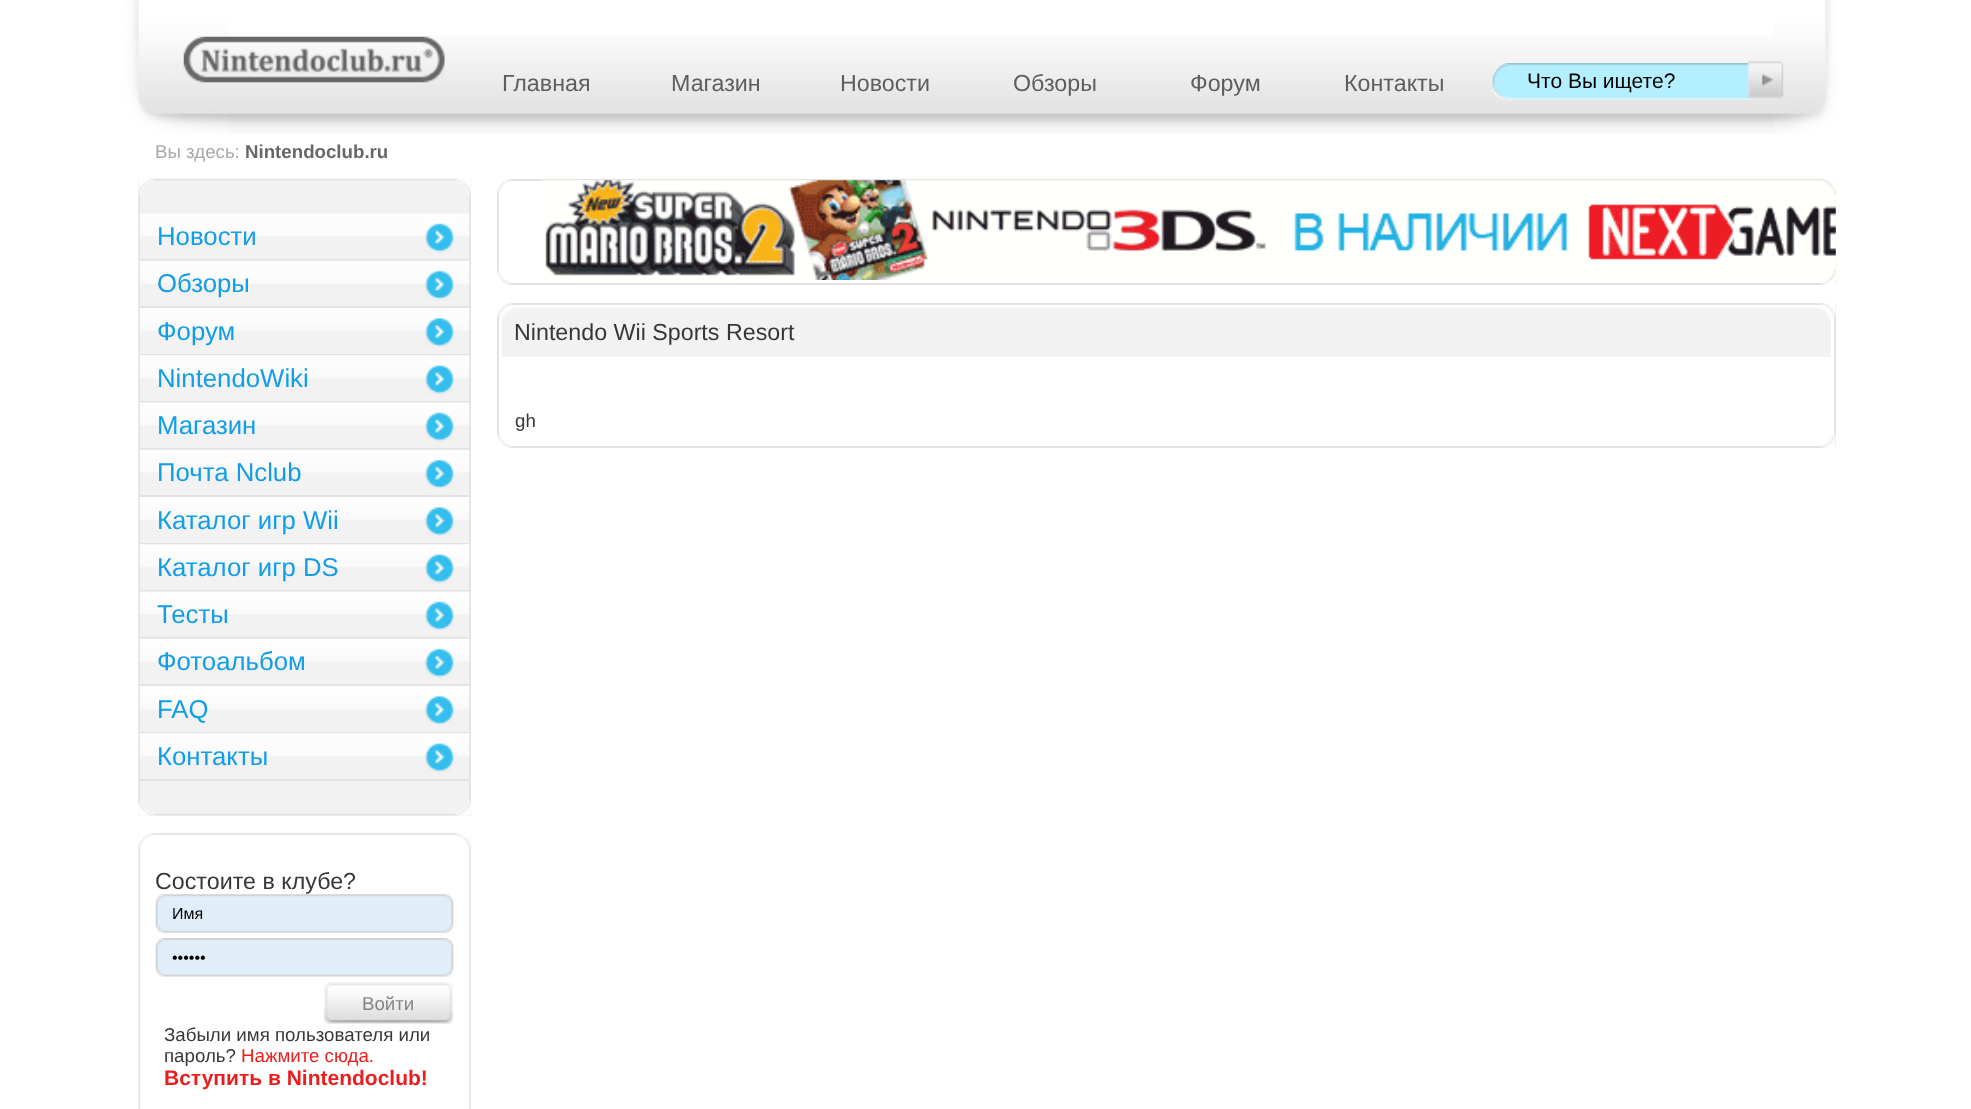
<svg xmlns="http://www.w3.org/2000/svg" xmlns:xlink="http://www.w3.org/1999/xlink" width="1971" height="1109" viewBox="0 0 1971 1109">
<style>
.cls-1{font:23.25px Liberation Sans;fill:#5e5e5e}
.cls-2{font:21px Liberation Sans;fill:#000000}
.cls-3{font:18.7px Liberation Sans;fill:#a9a9a9}
.cls-4{font:bold 18.7px Liberation Sans;fill:#676767}
.cls-5{font:25.75px Liberation Sans;fill:#129de7}
.cls-6{font:23.25px Liberation Sans;fill:#363838}
.cls-7{font:16px Liberation Sans;fill:#000000}
.cls-8{font:18.7px Liberation Sans;fill:#848484}
.cls-9{font:18.7px Liberation Sans;fill:#363838}
.cls-10{font:18.7px Liberation Sans;fill:#ed1d1e}
.cls-11{font:bold 21px Liberation Sans;fill:#ed1d1e}
</style>
<rect width="100%" height="100%" fill="#ffffff"/>
<image xlink:href="image0.png" x="229" y="36" width="1545" height="98"/>
<image xlink:href="image1.png" x="112" y="0" width="117" height="134"/>
<image xlink:href="image2.png" x="1774" y="0" width="88" height="134"/>
<image xlink:href="image3.png" x="183" y="36" width="262" height="47"/>
<image xlink:href="image4.png" x="1492" y="63" width="260" height="37"/>
<image xlink:href="image5.png" x="1748" y="61" width="36" height="37"/>
<rect fill="#f2f2f2" x="138" y="179" width="333" height="637"/>
<image xlink:href="image6.png" x="138" y="178" width="333" height="638"/>
<image xlink:href="image7.png" x="138" y="178" width="333" height="16"/>
<image xlink:href="image8.png" x="138" y="800" width="333" height="16"/>
<image xlink:href="image9.png" x="140" y="213" width="329" height="24"/>
<rect fill="#e2e2e2" x="140" y="259" width="329" height="2"/>
<image xlink:href="image10.png" x="425" y="223" width="29" height="30"/>
<image xlink:href="image11.png" x="140" y="260" width="329" height="24"/>
<rect fill="#e2e2e2" x="140" y="306" width="329" height="2"/>
<image xlink:href="image12.png" x="425" y="270" width="29" height="30"/>
<image xlink:href="image13.png" x="140" y="308" width="329" height="24"/>
<rect fill="#e2e2e2" x="140" y="354" width="329" height="2"/>
<image xlink:href="image14.png" x="425" y="318" width="29" height="29"/>
<image xlink:href="image15.png" x="140" y="355" width="329" height="24"/>
<rect fill="#e2e2e2" x="140" y="401" width="329" height="2"/>
<image xlink:href="image16.png" x="425" y="365" width="29" height="30"/>
<image xlink:href="image17.png" x="140" y="402" width="329" height="24"/>
<rect fill="#e2e2e2" x="140" y="448" width="329" height="2"/>
<image xlink:href="image18.png" x="425" y="412" width="29" height="30"/>
<image xlink:href="image11.png" x="140" y="449" width="329" height="24"/>
<rect fill="#e2e2e2" x="140" y="495" width="329" height="2"/>
<image xlink:href="image12.png" x="425" y="459" width="29" height="30"/>
<image xlink:href="image13.png" x="140" y="497" width="329" height="24"/>
<rect fill="#e2e2e2" x="140" y="543" width="329" height="2"/>
<image xlink:href="image14.png" x="425" y="507" width="29" height="29"/>
<image xlink:href="image15.png" x="140" y="544" width="329" height="24"/>
<rect fill="#e2e2e2" x="140" y="590" width="329" height="2"/>
<image xlink:href="image16.png" x="425" y="554" width="29" height="30"/>
<image xlink:href="image17.png" x="140" y="591" width="329" height="24"/>
<rect fill="#e2e2e2" x="140" y="637" width="329" height="2"/>
<image xlink:href="image18.png" x="425" y="601" width="29" height="30"/>
<image xlink:href="image11.png" x="140" y="638" width="329" height="24"/>
<rect fill="#e2e2e2" x="140" y="684" width="329" height="2"/>
<image xlink:href="image12.png" x="425" y="648" width="29" height="30"/>
<image xlink:href="image13.png" x="140" y="686" width="329" height="24"/>
<rect fill="#e2e2e2" x="140" y="732" width="329" height="2"/>
<image xlink:href="image14.png" x="425" y="696" width="29" height="29"/>
<image xlink:href="image15.png" x="140" y="733" width="329" height="24"/>
<rect fill="#e2e2e2" x="140" y="779" width="329" height="2"/>
<image xlink:href="image16.png" x="425" y="743" width="29" height="30"/>
<image xlink:href="image19.png" x="138" y="833" width="333" height="276"/>
<image xlink:href="image20.png" x="138" y="833" width="333" height="16"/>
<image xlink:href="image21.png" x="155" y="894" width="299" height="39"/>
<image xlink:href="image22.png" x="155" y="938" width="299" height="39"/>
<image xlink:href="image23.png" x="323" y="982" width="131" height="42"/>
<rect fill="none" stroke="#e2e2e2" stroke-width="2" x="498" y="180" width="1337" height="104"/>
<image xlink:href="image24.png" x="497" y="178" width="15" height="16"/>
<image xlink:href="image26.png" x="542" y="180" width="1294" height="100"/>
<image xlink:href="image25.png" x="1820" y="178" width="16" height="17"/>
<image xlink:href="image27.png" x="497" y="270" width="15" height="16"/>
<image xlink:href="image28.png" x="1820" y="269" width="16" height="17"/>
<rect fill="none" stroke="#e2e2e2" stroke-width="2" x="498" y="304" width="1337" height="143"/>
<rect fill="#f2f2f2" x="502" y="308" width="1329" height="49"/>
<image xlink:href="image32.png" x="502" y="308" width="13" height="11"/>
<image xlink:href="image29.png" x="497" y="302" width="15" height="16"/>
<image xlink:href="image31.png" x="1820" y="308" width="11" height="11"/>
<image xlink:href="image30.png" x="1820" y="302" width="16" height="16"/>
<image xlink:href="image33.png" x="497" y="433" width="16" height="15"/>
<image xlink:href="image34.png" x="1820" y="432" width="16" height="16"/>
<text class="cls-1" x="502" y="91">Главная</text>
<text class="cls-1" x="671" y="91">Магазин</text>
<text class="cls-1" x="840" y="91">Новости</text>
<text class="cls-1" x="1013" y="91">Обзоры</text>
<text class="cls-1" x="1190" y="91">Форум</text>
<text class="cls-1" x="1344" y="91">Контакты</text>
<text class="cls-2" x="1527" y="88">Что Вы ищете?</text>
<text class="cls-3" x="155" y="158">Вы здесь:</text>
<text class="cls-4" x="245" y="158">Nintendoclub.ru</text>
<text class="cls-5"><tspan x="157" y="245">Новости</tspan><tspan x="157" y="292">Обзоры</tspan><tspan x="157" y="340">Форум</tspan><tspan x="157" y="387">NintendoWiki</tspan><tspan x="157" y="434">Магазин</tspan><tspan x="157" y="481">Почта Nclub</tspan><tspan x="157" y="529">Каталог игр Wii</tspan><tspan x="157" y="576">Каталог игр DS</tspan><tspan x="157" y="623">Тесты</tspan><tspan x="157" y="670">Фотоальбом</tspan><tspan x="157" y="718">FAQ</tspan><tspan x="157" y="765">Контакты</tspan></text>
<text class="cls-6" x="155" y="889">Состоите в клубе?</text>
<text class="cls-7" x="172" y="919">Имя</text>
<text class="cls-7" x="172" y="963">••••••</text>
<text class="cls-8" x="362" y="1010">Войти</text>
<text class="cls-9"><tspan x="164" y="1041">Забыли имя пользователя или</tspan><tspan x="164" y="1062">пароль?</tspan></text>
<text class="cls-10" x="241" y="1062">Нажмите сюда.</text>
<text class="cls-11" x="164" y="1085">Вступить в Nintendoclub!</text>
<text class="cls-6" x="514" y="340">Nintendo Wii Sports Resort</text>
<text class="cls-9" x="515" y="427">gh</text>
</svg>
